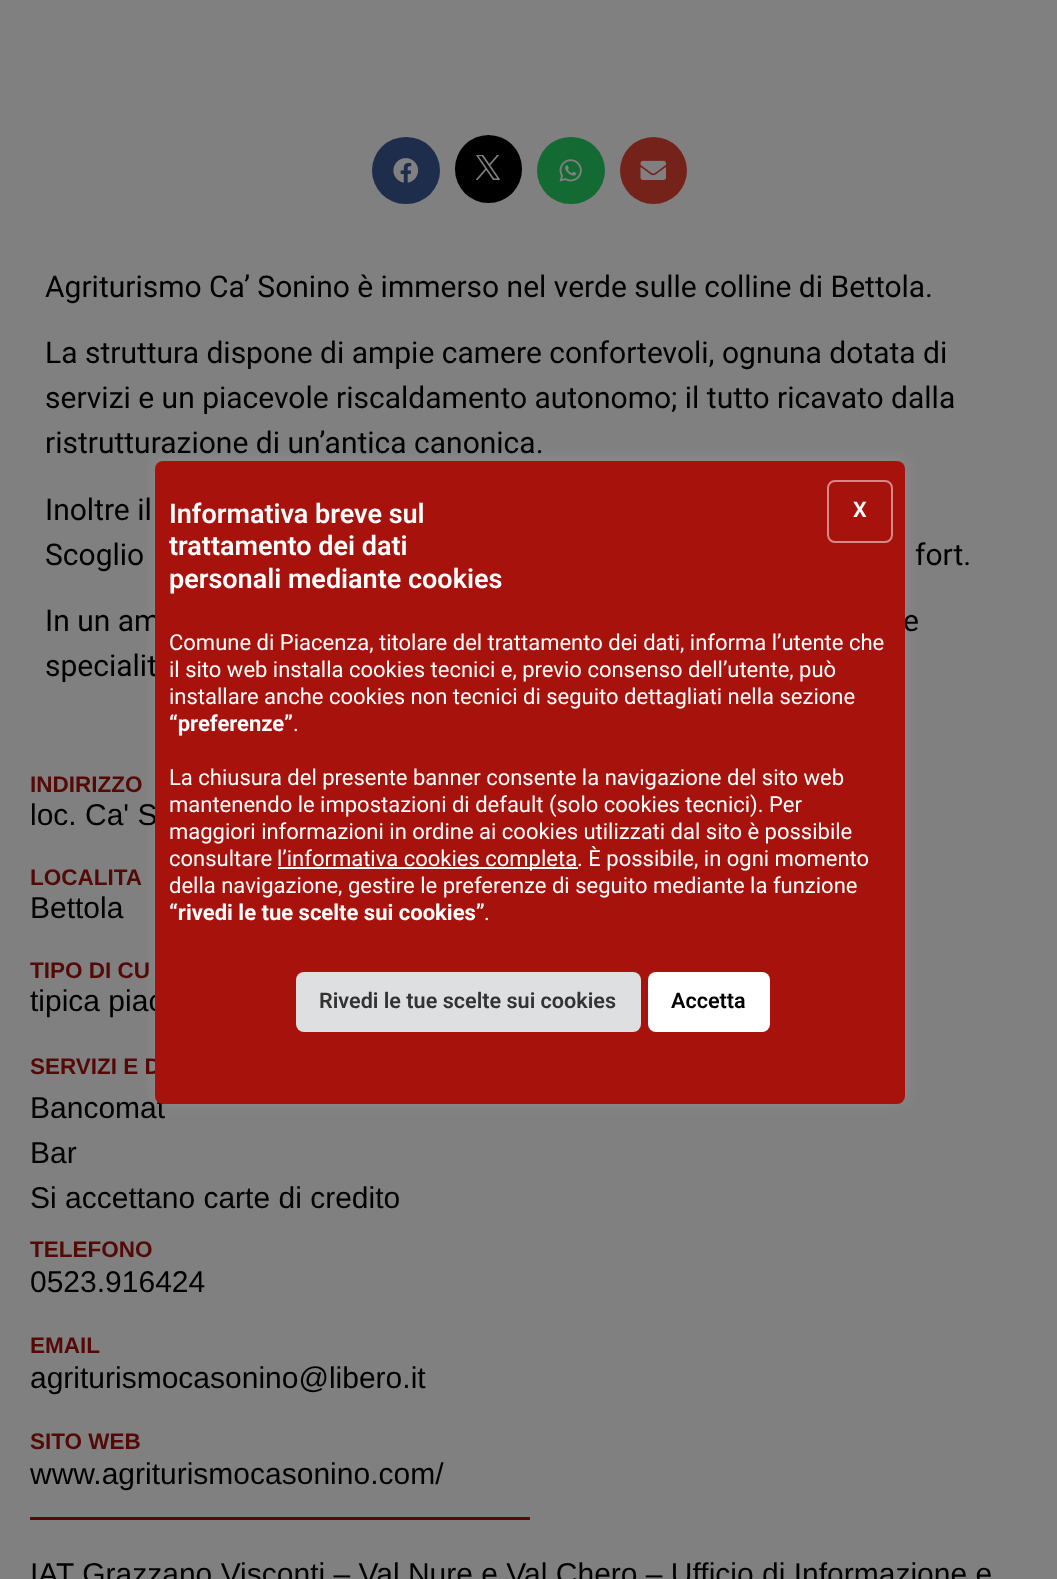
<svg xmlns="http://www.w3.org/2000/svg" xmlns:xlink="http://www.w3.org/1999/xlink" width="1057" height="1579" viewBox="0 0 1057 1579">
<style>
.cls-1{font:30px Roboto;fill:#000000}
.cls-2{font:bold 22.5px Liberation Sans;fill:#540906}
.cls-3{font:30px Liberation Sans;fill:#000000}
.cls-4{font:600 21.6px Roboto;fill:#ffffff}
.cls-5{font:600 21.6px Roboto;fill:#333333}
.cls-6{font:600 21.6px Roboto;fill:#000000}
.cls-7{font:22px Roboto;fill:#ffffff}
.cls-8{font:bold 22px Roboto;fill:#ffffff}
.cls-9{font:600 27px Roboto;fill:#ffffff}
</style>
<rect width="100%" height="100%" fill="#808080"/>
<rect fill="#1e2d4c" x="372" y="137" width="68" height="67" rx="33.5"/>
<image xlink:href="image0.png" x="393" y="158" width="26" height="25"/>
<rect fill="#000000" x="455" y="135" width="67" height="68" rx="33.5"/>
<image xlink:href="image1.png" x="476" y="155" width="24" height="25"/>
<rect fill="#136a33" x="537" y="137" width="68" height="67" rx="33.5"/>
<image xlink:href="image2.png" x="559" y="159" width="23" height="23"/>
<circle fill="#75221b" cx="653.5" cy="170.5" r="33.5"/>
<image xlink:href="image3.png" x="640" y="160" width="26" height="20"/>
<rect fill="#540a06" x="30" y="1517" width="500" height="3"/>
<rect fill="#acabab" fill-opacity="0.3" filter="blur(7.5px)" x="155" y="459" width="750" height="644" rx="8"/>
<text class="cls-1" x="45" y="297">Agriturismo Ca’ Sonino è immerso nel verde sulle colline di Bettola.</text>
<text class="cls-1"><tspan x="45" y="363">La struttura dispone di ampie camere confortevoli, ognuna dotata di</tspan><tspan x="45" y="408">servizi e un piacevole riscaldamento autonomo; il tutto ricavato dalla</tspan><tspan x="45" y="453">ristrutturazione di un’antica canonica.</tspan></text>
<text class="cls-1"><tspan x="45" y="520">Inoltre il</tspan><tspan x="45" y="565">Scoglio</tspan></text>
<text class="cls-1" x="915" y="565">fort.</text>
<text class="cls-1" x="45" y="631">In un am</text>
<text class="cls-1" x="903" y="631">e</text>
<text class="cls-1" x="45" y="676">specialit</text>
<text class="cls-2" x="30" y="792">INDIRIZZO</text>
<text class="cls-3" x="30" y="825">loc. Ca' S</text>
<text class="cls-2" x="30" y="885">LOCALITA</text>
<text class="cls-3" x="30" y="918">Bettola</text>
<text class="cls-2" x="30" y="978">TIPO DI CU</text>
<text class="cls-3" x="30" y="1011">tipica piac</text>
<text class="cls-2" x="30" y="1074">SERVIZI E D</text>
<text class="cls-3"><tspan x="30" y="1118">Bancomat</tspan><tspan x="30" y="1163">Bar</tspan><tspan x="30" y="1208">Si accettano carte di credito</tspan></text>
<text class="cls-2" x="30" y="1257">TELEFONO</text>
<text class="cls-3" x="30" y="1292">0523.916424</text>
<text class="cls-2" x="30" y="1353">EMAIL</text>
<text class="cls-3" x="30" y="1388">agriturismocasonino@libero.it</text>
<text class="cls-2" x="30" y="1449">SITO WEB</text>
<text class="cls-3" x="30" y="1484">www.agriturismocasonino.com/</text>
<text class="cls-3" x="30" y="1584">IAT Grazzano Visconti – Val Nure e Val Chero – Ufficio di Informazione e</text>
<rect fill="#a8120c" x="155" y="461" width="750" height="643" rx="8"/>
<rect fill="none" stroke="#d48986" stroke-width="2" x="828" y="481" width="64" height="61" rx="7"/>
<text class="cls-4" x="853" y="517">X</text>
<rect fill="#dedfe0" x="296" y="972" width="345" height="60" rx="8"/>
<text class="cls-5" x="319" y="1008">Rivedi le tue scelte sui cookies</text>
<rect fill="#ffffff" x="648" y="972" width="122" height="60" rx="8"/>
<text class="cls-6" x="671" y="1008">Accetta</text>
<text class="cls-7"><tspan x="169" y="650">Comune di Piacenza, titolare del trattamento dei dati, informa l’utente che</tspan><tspan x="169" y="677">il sito web installa cookies tecnici e, previo consenso dell’utente, può</tspan><tspan x="169" y="704">installare anche cookies non tecnici di seguito dettagliati nella sezione</tspan></text>
<text class="cls-8" x="169" y="731">“preferenze”</text>
<text class="cls-7" x="293" y="731">.</text>
<text class="cls-7"><tspan x="169" y="785">La chiusura del presente banner consente la navigazione del sito web</tspan><tspan x="169" y="812">mantenendo le impostazioni di default (solo cookies tecnici). Per</tspan><tspan x="169" y="839">maggiori informazioni in ordine ai cookies utilizzati dal sito è possibile</tspan><tspan x="169" y="866">consultare</tspan></text>
<rect fill="#ffffff" x="278" y="867" width="300" height="2"/>
<text class="cls-7" x="277" y="866">l’informativa cookies completa. È possibile, in ogni momento</text>
<text class="cls-7" x="169" y="893">della navigazione, gestire le preferenze di seguito mediante la funzione</text>
<text class="cls-8" x="169" y="920">“rivedi le tue scelte sui cookies”</text>
<text class="cls-7" x="484" y="920">.</text>
<text class="cls-9"><tspan x="169" y="523">Informativa breve sul</tspan><tspan x="169" y="555">trattamento dei dati</tspan><tspan x="169" y="588">personali mediante cookies</tspan></text>
</svg>
